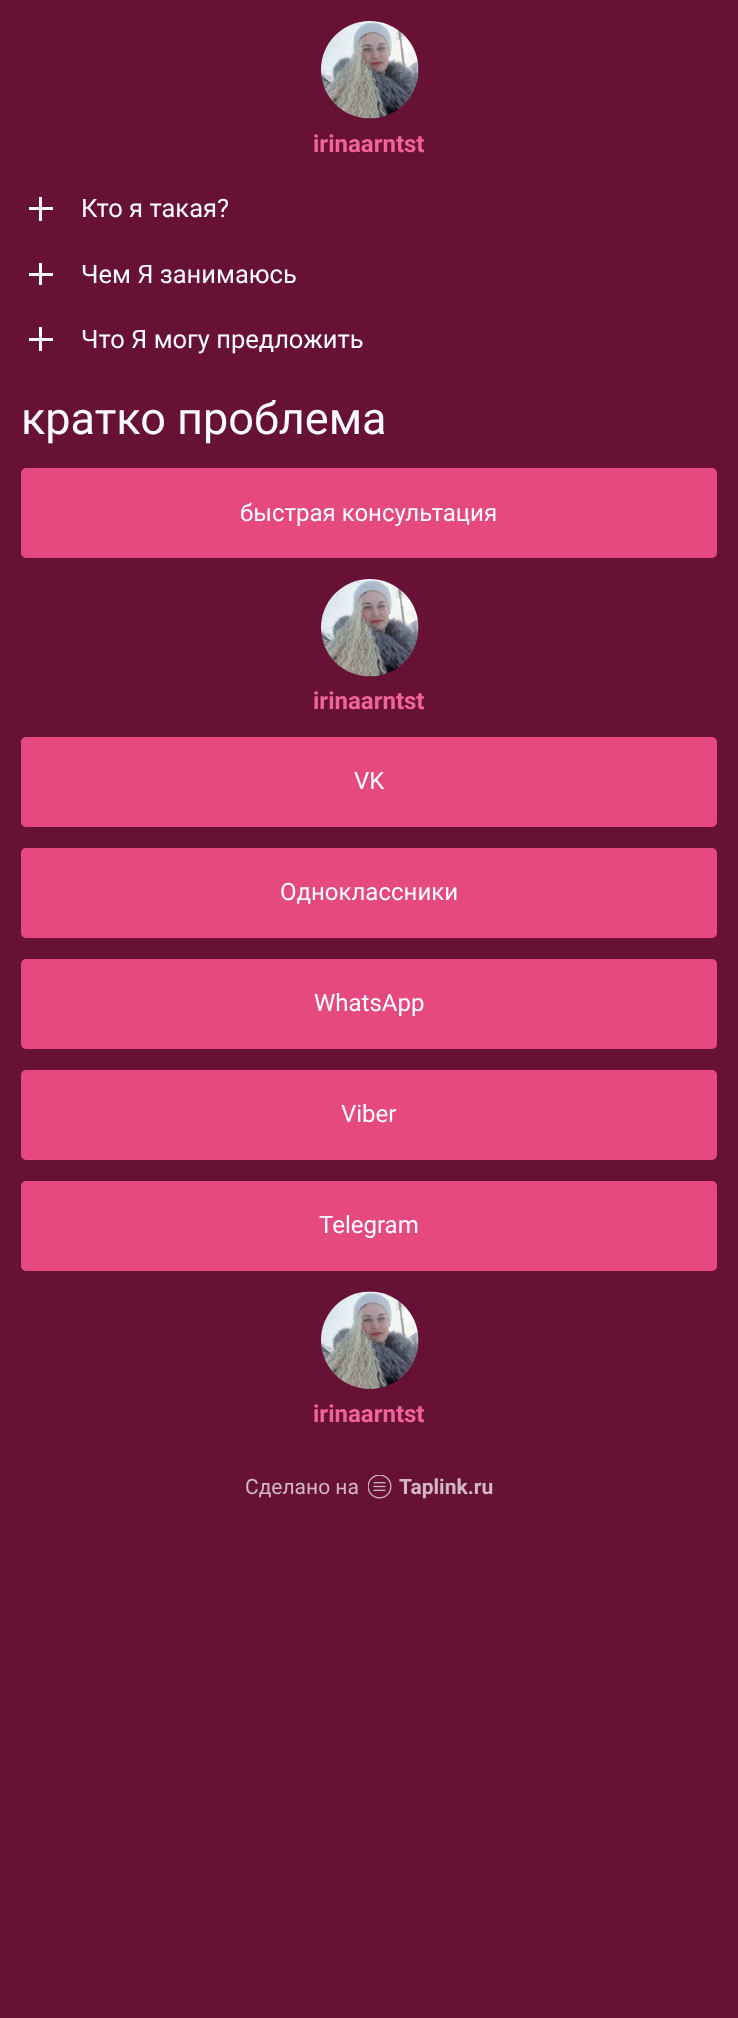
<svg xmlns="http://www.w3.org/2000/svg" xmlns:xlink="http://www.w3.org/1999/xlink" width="738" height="2018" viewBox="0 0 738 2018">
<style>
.cls-1{font:bold 24px Roboto;fill:#f06595}
.cls-2{font:25.5px Roboto;fill:#ffffff}
.cls-3{font:45px Roboto;fill:#ffffff}
.cls-4{font:24px Roboto;fill:#ffffff}
.cls-5{font:21px Roboto;fill:#d1b8c2}
.cls-6{font:bold 21px Roboto;fill:#d1b8c2}
</style>
<rect width="100%" height="100%" fill="#671135"/>
<image xlink:href="image0.png" x="321" y="21" width="98" height="98"/>
<rect fill="#ffffff" x="39" y="197" width="3" height="24"/>
<rect fill="#ffffff" x="29" y="207" width="24" height="3"/>
<rect fill="#ffffff" x="39" y="263" width="3" height="22"/>
<rect fill="#ffffff" x="29" y="273" width="24" height="3"/>
<rect fill="#ffffff" x="39" y="327" width="3" height="24"/>
<rect fill="#ffffff" x="29" y="338" width="24" height="3"/>
<rect fill="#e64980" stroke="#e64980" stroke-width="3" x="22.5" y="469.5" width="693" height="87" rx="3.5"/>
<image xlink:href="image0.png" x="321" y="579" width="98" height="98"/>
<rect fill="#e64980" stroke="#e64980" stroke-width="3" x="22.5" y="738.5" width="693" height="87" rx="3.5"/>
<rect fill="#e64980" stroke="#e64980" stroke-width="3" x="22.5" y="849.5" width="693" height="87" rx="3.5"/>
<rect fill="#e64980" stroke="#e64980" stroke-width="3" x="22.5" y="960.5" width="693" height="87" rx="3.5"/>
<rect fill="#e64980" stroke="#e64980" stroke-width="3" x="22.5" y="1071.5" width="693" height="87" rx="3.5"/>
<rect fill="#e64980" stroke="#e64980" stroke-width="3" x="22.5" y="1182.5" width="693" height="87" rx="3.5"/>
<image xlink:href="image1.png" x="321" y="1291" width="98" height="98"/>
<image xlink:href="image2.png" x="368" y="1475" width="24" height="24"/>
<text class="cls-1" x="313" y="152">irinaarntst</text>
<text class="cls-2" x="81" y="217">Кто я такая?</text>
<text class="cls-2" x="81" y="283">Чем Я занимаюсь</text>
<text class="cls-2" x="81" y="348">Что Я могу предложить</text>
<text class="cls-3" x="21" y="434">кратко проблема</text>
<text class="cls-4" x="240" y="521">быстрая консультация</text>
<text class="cls-1" x="313" y="709">irinaarntst</text>
<text class="cls-4" x="354" y="789">VK</text>
<text class="cls-4" x="280" y="900">Одноклассники</text>
<text class="cls-4" x="314" y="1011">WhatsApp</text>
<text class="cls-4" x="341" y="1122">Viber</text>
<text class="cls-4" x="319" y="1233">Telegram</text>
<text class="cls-1" x="313" y="1422">irinaarntst</text>
<text class="cls-5" x="245" y="1494">Сделано на</text>
<text class="cls-6" x="399" y="1494">Taplink.ru</text>
</svg>
